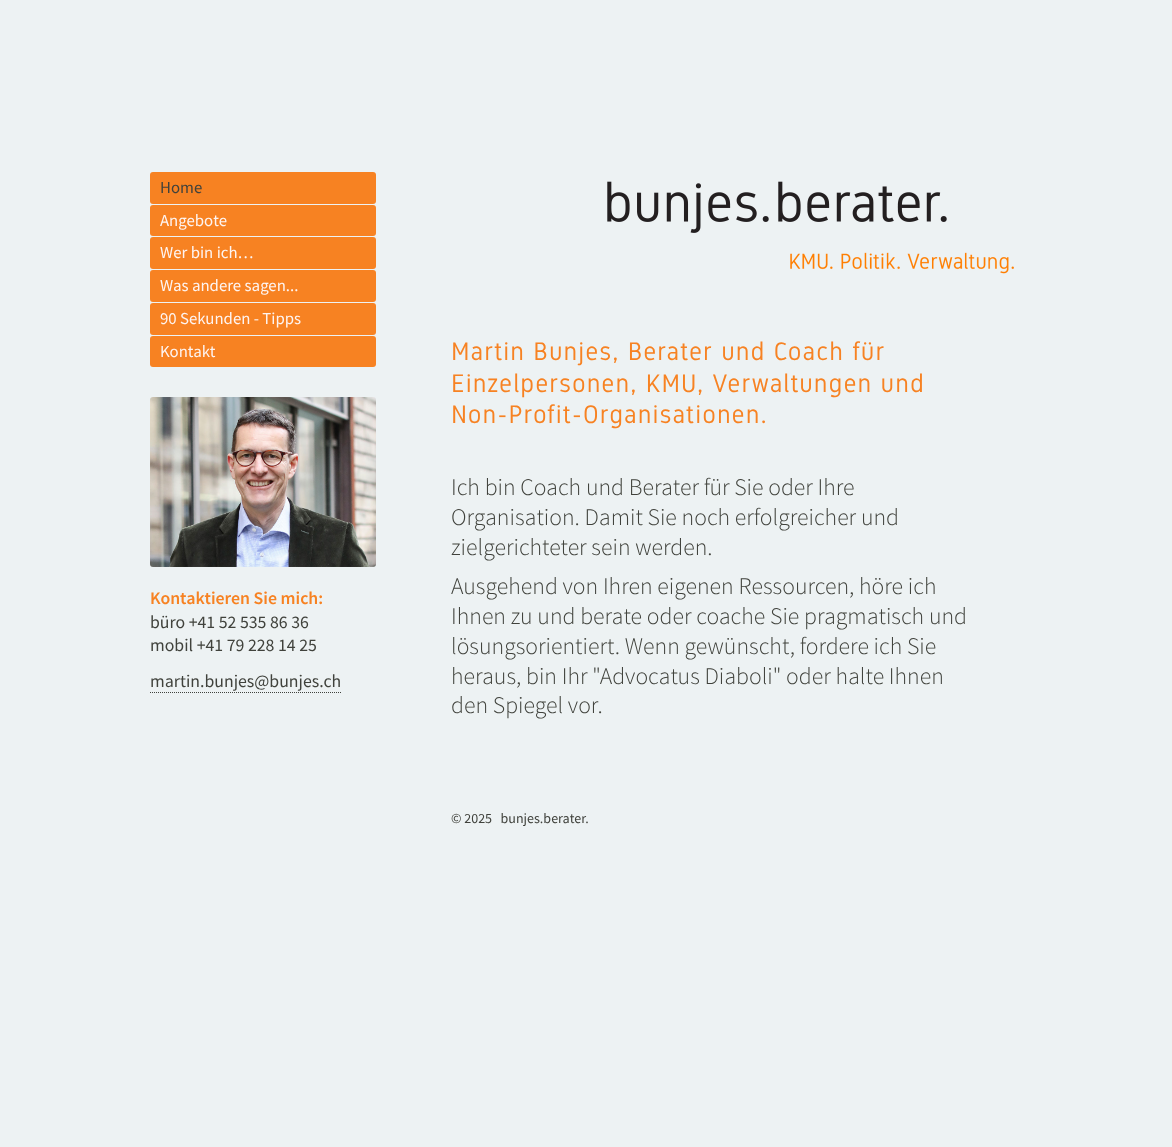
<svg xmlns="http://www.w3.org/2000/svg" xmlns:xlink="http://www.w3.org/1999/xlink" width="1172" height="1147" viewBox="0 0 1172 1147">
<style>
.cls-1{font:16.75px Source Sans Pro;fill:#40423c}
.cls-2{font:16.75px Source Sans Pro;fill:#fef4f1}
.cls-3{font:600 17.75px Source Sans Pro;fill:#f78222}
.cls-4{font:17.75px Source Sans Pro;fill:#40423c}
.cls-5{font:25.5px Gidole;letter-spacing:1px;fill:#f78222}
.cls-6{font:300 23.75px Source Sans Pro;fill:#40423c}
.cls-7{font:14px Source Sans Pro;fill:#40423c}
</style>
<rect width="100%" height="100%" fill="#edf2f3"/>
<rect fill="#f78222" x="150" y="172" width="226" height="32" rx="3"/>
<rect fill="#f78222" x="150" y="205" width="226" height="31" rx="3"/>
<rect fill="#f78222" x="150" y="237" width="226" height="32" rx="3"/>
<rect fill="#f78222" x="150" y="270" width="226" height="32" rx="3"/>
<rect fill="#f78222" x="150" y="303" width="226" height="32" rx="3"/>
<rect fill="#f78222" x="150" y="336" width="226" height="31" rx="3"/>
<image xlink:href="image0.png" x="150" y="397" width="226" height="170"/>
<path fill="none" stroke="#40423c" stroke-dasharray="1 1" d="M150 692.5H341"/>
<image xlink:href="image1.png" x="607" y="181" width="407" height="93"/>
<text class="cls-1" x="160" y="193">Home</text>
<text class="cls-2"><tspan x="160" y="226">Angebote</tspan><tspan x="160" y="258">Wer bin ich…</tspan><tspan x="160" y="291">Was andere sagen...</tspan><tspan x="160" y="324">90 Sekunden - Tipps</tspan><tspan x="160" y="357">Kontakt</tspan></text>
<text class="cls-3" x="150" y="604">Kontaktieren Sie mich:</text>
<text class="cls-4"><tspan x="150" y="628">büro +41 52 535 86 36</tspan><tspan x="150" y="651">mobil +41 79 228 14 25</tspan></text>
<text class="cls-4" x="150" y="687">martin.bunjes@bunjes.ch</text>
<text class="cls-5"><tspan x="451" y="360">Martin Bunjes, Berater und Coach für</tspan><tspan x="451" y="392">Einzelpersonen, KMU, Verwaltungen und</tspan><tspan x="451" y="423">Non-Profit-Organisationen.</tspan></text>
<text class="cls-6"><tspan x="451" y="495">Ich bin Coach und Berater für Sie oder Ihre</tspan><tspan x="451" y="525">Organisation. Damit Sie noch erfolgreicher und</tspan><tspan x="451" y="555">zielgerichteter sein werden.</tspan><tspan x="451" y="594">Ausgehend von Ihren eigenen Ressourcen, höre ich</tspan><tspan x="451" y="624">Ihnen zu und berate oder coache Sie pragmatisch und</tspan><tspan x="451" y="654">lösungsorientiert. Wenn gewünscht, fordere ich Sie</tspan><tspan x="451" y="684">heraus, bin Ihr "Advocatus Diaboli" oder halte Ihnen</tspan><tspan x="451" y="713">den Spiegel vor.</tspan></text>
<text class="cls-7" xml:space="preserve" x="451" y="823">© 2025   bunjes.berater.</text>
</svg>
